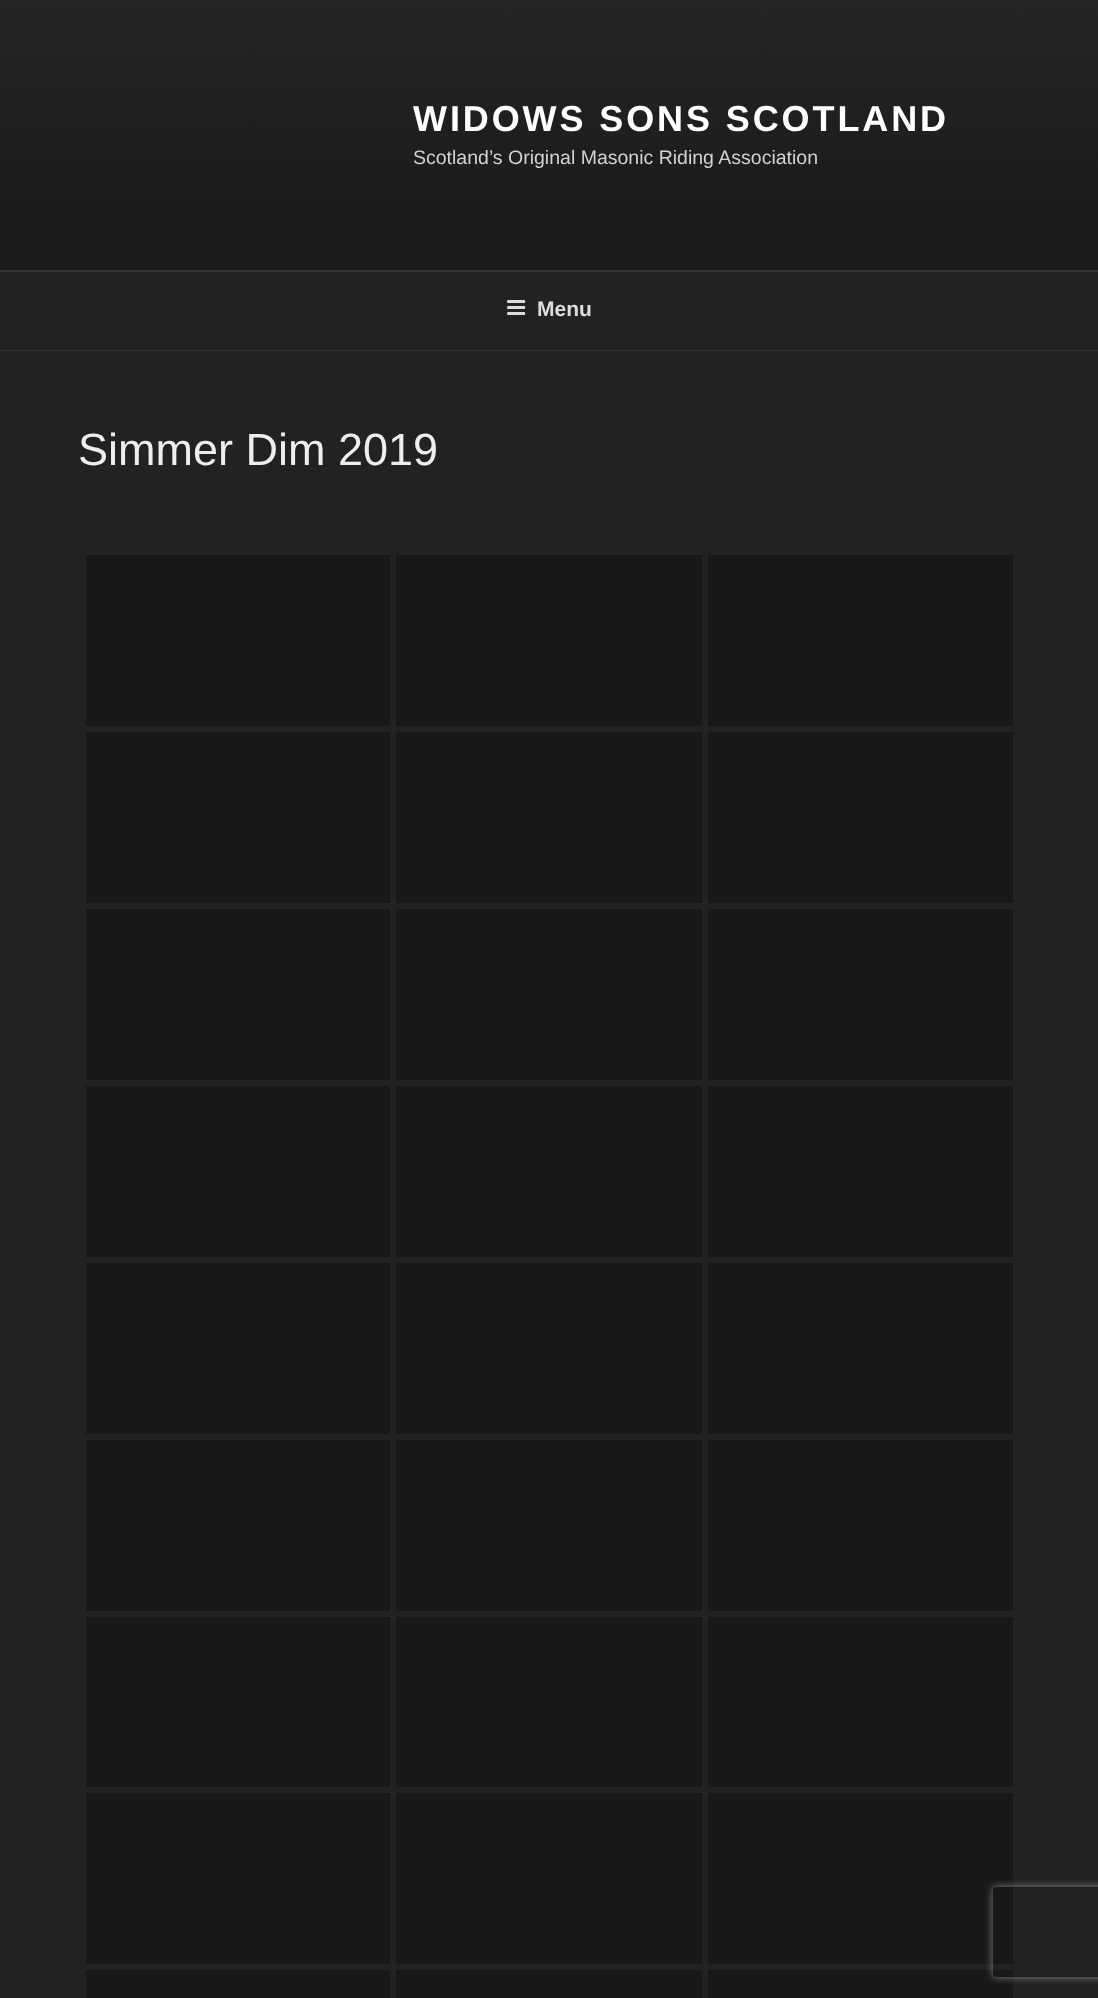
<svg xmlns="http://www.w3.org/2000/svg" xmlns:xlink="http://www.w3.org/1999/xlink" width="1098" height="1998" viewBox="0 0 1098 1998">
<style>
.cls-1{font:bold 36px Liberation Sans;letter-spacing:2.9px;fill:#ffffff}
.cls-2{font:19.5px Liberation Sans;fill:#d2d2d2}
.cls-3{font:bold 21px Liberation Sans;fill:#dddddd}
.cls-4{font:45px Liberation Sans;fill:#eeeeee}
</style>
<defs>
<linearGradient id="g1" gradientUnits="userSpaceOnUse" x1="549" y1="0" x2="549" y2="270"><stop offset="0" stop-color="#262626"/><stop offset="0.75" stop-color="#1b1b1b"/><stop offset="1" stop-color="#1b1b1b"/></linearGradient>
<clipPath id="clip1"><path d="M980 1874H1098V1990H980ZM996 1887H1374C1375.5 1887 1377 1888.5 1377 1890V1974C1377 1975.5 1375.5 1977 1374 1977H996C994.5 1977 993 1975.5 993 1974V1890C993 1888.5 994.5 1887 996 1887Z" clip-rule="evenodd"/></clipPath>
</defs>
<rect width="100%" height="100%" fill="#222222"/>
<rect fill="url(#g1)" x="0" y="0" width="1098" height="270"/>
<rect fill="#333333" x="0" y="270" width="1098" height="2"/>
<rect fill="#333333" x="0" y="350" width="1098" height="1"/>
<image xlink:href="image0.png" x="507" y="300" width="19" height="15"/>
<rect fill="#181818" x="86" y="555" width="304" height="171"/>
<rect fill="#181818" x="396" y="555" width="306" height="171"/>
<rect fill="#181818" x="708" y="555" width="305" height="171"/>
<rect fill="#181818" x="86" y="732" width="304" height="171"/>
<rect fill="#181818" x="396" y="732" width="306" height="171"/>
<rect fill="#181818" x="708" y="732" width="305" height="171"/>
<rect fill="#181818" x="86" y="909" width="304" height="171"/>
<rect fill="#181818" x="396" y="909" width="306" height="171"/>
<rect fill="#181818" x="708" y="909" width="305" height="171"/>
<rect fill="#181818" x="86" y="1086" width="304" height="171"/>
<rect fill="#181818" x="396" y="1086" width="306" height="171"/>
<rect fill="#181818" x="708" y="1086" width="305" height="171"/>
<rect fill="#181818" x="86" y="1263" width="304" height="171"/>
<rect fill="#181818" x="396" y="1263" width="306" height="171"/>
<rect fill="#181818" x="708" y="1263" width="305" height="171"/>
<rect fill="#181818" x="86" y="1440" width="304" height="171"/>
<rect fill="#181818" x="396" y="1440" width="306" height="171"/>
<rect fill="#181818" x="708" y="1440" width="305" height="171"/>
<rect fill="#181818" x="86" y="1617" width="304" height="170"/>
<rect fill="#181818" x="396" y="1617" width="306" height="170"/>
<rect fill="#181818" x="708" y="1617" width="305" height="170"/>
<rect fill="#181818" x="86" y="1793" width="304" height="171"/>
<rect fill="#181818" x="396" y="1793" width="306" height="171"/>
<rect fill="#181818" x="708" y="1793" width="305" height="171"/>
<rect fill="#181818" x="86" y="1970" width="304" height="28"/>
<rect fill="#181818" x="396" y="1970" width="306" height="28"/>
<rect fill="#181818" x="708" y="1970" width="305" height="28"/>
<g clip-path="url(#clip1)">
<rect fill="#808080" filter="blur(4px)" x="993" y="1887" width="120" height="90" rx="3"/>
</g>
<text class="cls-1" x="413" y="131">WIDOWS SONS SCOTLAND</text>
<text class="cls-2" x="413" y="164">Scotland’s Original Masonic Riding Association</text>
<text class="cls-3" x="537" y="316">Menu</text>
<text class="cls-4" x="78" y="465">Simmer Dim 2019</text>
</svg>
